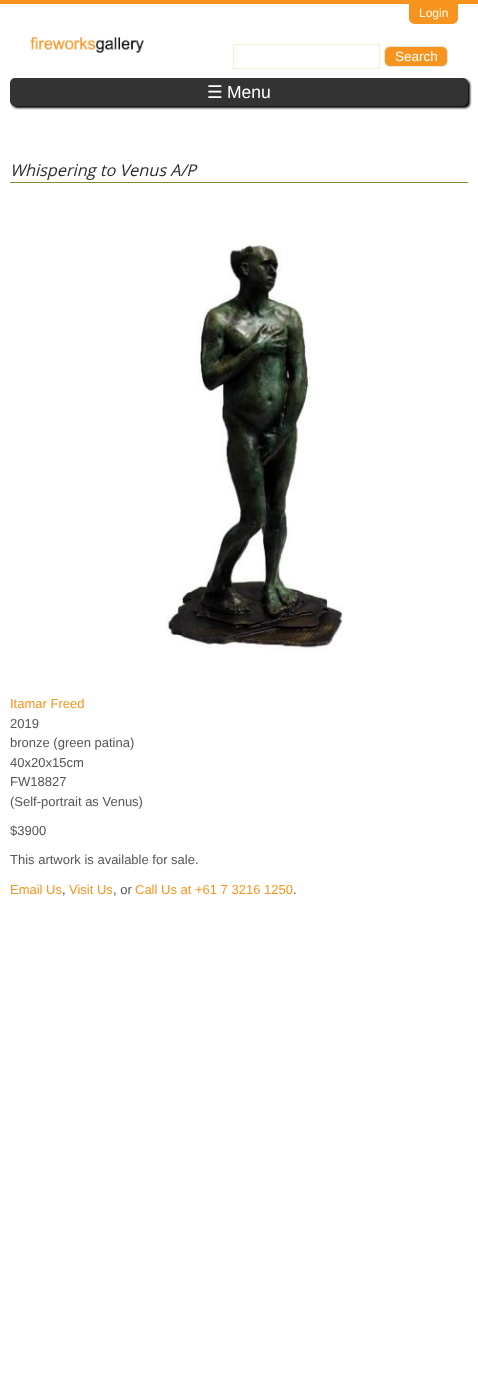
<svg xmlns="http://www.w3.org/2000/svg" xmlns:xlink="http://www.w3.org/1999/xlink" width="478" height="1398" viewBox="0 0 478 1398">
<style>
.cls-1{font:12px Liberation Sans;fill:#fffff0}
.cls-2{font:13.5px Liberation Sans;fill:#ffffff}
.cls-3{font:17.5px DejaVu Sans;fill:#ffffff}
.cls-4{font:17.5px Liberation Sans;fill:#ffffff}
.cls-5{font:italic 16.25px Open Sans;fill:#2c2c2c}
.cls-6{font:13px Liberation Sans;fill:#f7941e}
.cls-7{font:13px Liberation Sans;fill:#555555}
</style>
<rect width="100%" height="100%" fill="#ffffff"/>
<rect fill="#f7941e" x="0" y="0" width="478" height="4"/>
<path fill="#f7941e" d="M409 4H458V18C458 21.5 455.5 24 452 24H415C411.5 24 409 21.5 409 18Z"/>
<image xlink:href="image0.png" x="30" y="37" width="114" height="16"/>
<rect fill="none" stroke="#ebf4cd" x="233.5" y="44.5" width="146" height="24"/>
<rect fill="#f7941e" stroke="#e7e7e7" x="384.5" y="46.5" width="63" height="20" rx="5.5"/>
<rect fill="#000000" filter="blur(1px)" x="12" y="80" width="458" height="28" rx="5"/>
<rect fill="#333333" x="10" y="78" width="458" height="28" rx="5"/>
<rect fill="#89893c" x="10" y="182" width="458" height="1"/>
<image xlink:href="image1.png" x="167" y="240" width="176" height="412"/>
<text class="cls-1" x="419" y="17">Login</text>
<text class="cls-2" x="395" y="61">Search</text>
<text class="cls-3" x="207" y="98">☰</text>
<text class="cls-4" x="227" y="98">Menu</text>
<text class="cls-5" x="10" y="176">Whispering to Venus A/P</text>
<text class="cls-6" x="10" y="708">Itamar Freed</text>
<text class="cls-7"><tspan x="10" y="728">2019</tspan><tspan x="10" y="747">bronze (green patina)</tspan><tspan x="10" y="767">40x20x15cm</tspan><tspan x="10" y="786">FW18827</tspan><tspan x="10" y="806">(Self-portrait as Venus)</tspan></text>
<text class="cls-7" x="10" y="835">$3900</text>
<text class="cls-7" x="10" y="864">This artwork is available for sale.</text>
<text class="cls-6" x="10" y="894">Email Us</text>
<text class="cls-7" x="62" y="894">,</text>
<text class="cls-6" x="69" y="894">Visit Us</text>
<text class="cls-7" x="113" y="894">, or</text>
<text class="cls-6" x="135" y="894">Call Us at +61 7 3216 1250</text>
<text class="cls-7" x="293" y="894">.</text>
</svg>
